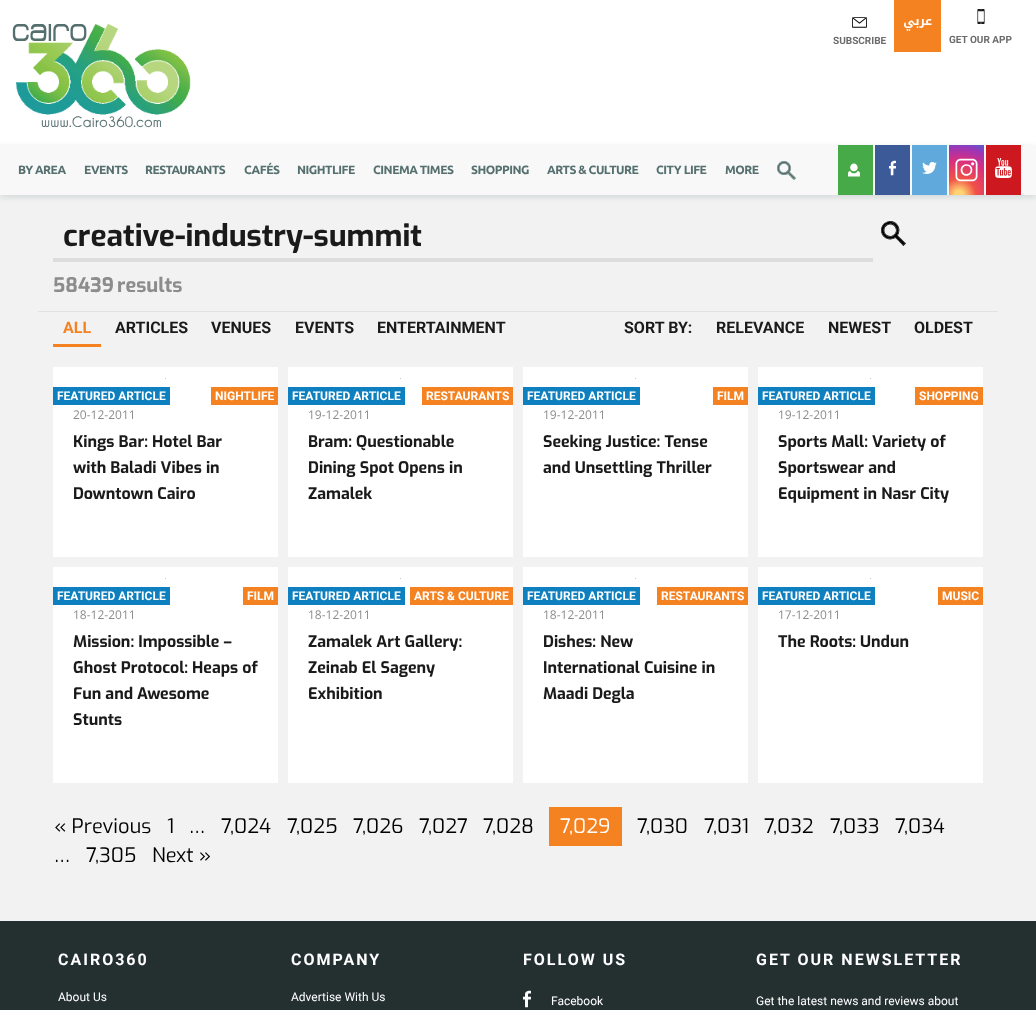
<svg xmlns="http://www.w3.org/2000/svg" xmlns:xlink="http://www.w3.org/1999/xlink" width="1036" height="1010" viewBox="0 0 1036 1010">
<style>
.cls-1{font:bold 12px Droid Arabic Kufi;direction:rtl;fill:#ffffff}
.cls-2{font:bold 10px Roboto;fill:#6a6b6d}
.cls-3{font:bold 12px Ubuntu;letter-spacing:-0.5px;fill:#55706f}
.cls-4{font:bold 30px Exo;fill:#1a1a1a}
.cls-5{font:bold 20px Exo;fill:#8c8c8c}
.cls-6{font:bold 16px Roboto;fill:#f58220}
.cls-7{font:bold 16px Roboto;fill:#1a1a1a}
.cls-8{font:bold 12px Roboto;fill:#ffffff}
.cls-9{font:12px Open Sans;fill:#8c8c8c}
.cls-10{font:bold 16px Exo;fill:#1a1a1a}
.cls-11{font:20px Exo;fill:#000000}
.cls-12{font:20px Exo;fill:#ffffff}
.cls-13{font:bold 16px Roboto;letter-spacing:2px;fill:#ffffff}
.cls-14{font:12px Roboto;fill:#ffffff}
</style>
<defs>
<radialGradient id="g1" gradientUnits="userSpaceOnUse" cx="959" cy="195" r="56"><stop offset="0.08" stop-color="#fed373"/><stop offset="0.3" stop-color="#f15245"/><stop offset="0.62" stop-color="#d92e7f"/><stop offset="0.85" stop-color="#9b36b7"/><stop offset="1" stop-color="#515ecf"/></radialGradient>
<clipPath id="clip1"><rect x="63" y="220" width="800" height="33"/></clipPath>
</defs>
<rect width="100%" height="100%" fill="#f2f2f2"/>
<rect fill="#ffffff" x="0" y="0" width="1036" height="145"/>
<image xlink:href="image0.png" x="12" y="23" width="179" height="105"/>
<rect fill="#f58220" x="894" y="0" width="47" height="52"/>
<image xlink:href="image1.png" x="852" y="17" width="15" height="11"/>
<image xlink:href="image2.png" x="977" y="9" width="8" height="15"/>
<rect fill="#55706f" fill-opacity="0.21" filter="blur(3px)" x="0" y="147" width="1036" height="50"/>
<rect fill="#f8f8f8" x="0" y="145" width="1036" height="50"/>
<image xlink:href="image3.png" x="777" y="161" width="19" height="19"/>
<rect fill="#47aa48" x="838" y="145" width="35" height="50"/>
<image xlink:href="image4.png" x="848" y="163" width="12" height="14"/>
<rect fill="#3d5a98" x="875" y="145" width="35" height="50"/>
<image xlink:href="image5.png" x="889" y="160" width="7" height="16"/>
<rect fill="#5fa9dd" x="912" y="145" width="35" height="50"/>
<image xlink:href="image6.png" x="922" y="162" width="15" height="12"/>
<rect fill="url(#g1)" x="949" y="145" width="35" height="50"/>
<image xlink:href="image7.png" x="955" y="158" width="23" height="24"/>
<rect fill="#cc181e" x="986" y="145" width="35" height="50"/>
<image xlink:href="image8.png" x="995" y="158" width="17" height="20"/>
<rect fill="#e2e2e2" x="38" y="311" width="960" height="1"/>
<rect fill="#dddddd" x="53" y="258" width="820" height="4"/>
<image xlink:href="image9.png" x="881" y="221" width="25" height="25"/>
<rect fill="#f58220" x="53" y="344" width="48" height="3"/>
<rect fill="#ffffff" x="53" y="367" width="225" height="190"/>
<rect fill="#c3c3c3" x="165" y="378" width="1" height="1"/>
<rect fill="#0e80bf" x="53" y="387" width="117" height="18"/>
<rect fill="#f58220" x="211" y="387" width="67" height="18"/>
<rect fill="#ffffff" x="288" y="367" width="225" height="190"/>
<rect fill="#c3c3c3" x="400" y="378" width="1" height="1"/>
<rect fill="#0e80bf" x="288" y="387" width="117" height="18"/>
<rect fill="#f58220" x="422" y="387" width="91" height="18"/>
<rect fill="#ffffff" x="523" y="367" width="225" height="190"/>
<rect fill="#c3c3c3" x="635" y="378" width="1" height="1"/>
<rect fill="#0e80bf" x="523" y="387" width="117" height="18"/>
<rect fill="#f58220" x="713" y="387" width="35" height="18"/>
<rect fill="#ffffff" x="758" y="367" width="225" height="190"/>
<rect fill="#c3c3c3" x="870" y="378" width="1" height="1"/>
<rect fill="#0e80bf" x="758" y="387" width="117" height="18"/>
<rect fill="#f58220" x="915" y="387" width="68" height="18"/>
<rect fill="#ffffff" x="53" y="567" width="225" height="216"/>
<rect fill="#c3c3c3" x="165" y="578" width="1" height="1"/>
<rect fill="#0e80bf" x="53" y="587" width="117" height="18"/>
<rect fill="#f58220" x="243" y="587" width="35" height="18"/>
<rect fill="#ffffff" x="288" y="567" width="225" height="216"/>
<rect fill="#c3c3c3" x="400" y="578" width="1" height="1"/>
<rect fill="#0e80bf" x="288" y="587" width="117" height="18"/>
<rect fill="#f58220" x="410" y="587" width="103" height="18"/>
<rect fill="#ffffff" x="523" y="567" width="225" height="216"/>
<rect fill="#c3c3c3" x="635" y="578" width="1" height="1"/>
<rect fill="#0e80bf" x="523" y="587" width="117" height="18"/>
<rect fill="#f58220" x="657" y="587" width="91" height="18"/>
<rect fill="#ffffff" x="758" y="567" width="225" height="216"/>
<rect fill="#c3c3c3" x="870" y="578" width="1" height="1"/>
<rect fill="#0e80bf" x="758" y="587" width="117" height="18"/>
<rect fill="#f58220" x="938" y="587" width="45" height="18"/>
<rect fill="#f58220" x="549" y="807" width="73" height="39"/>
<rect fill="#242f2f" x="0" y="921" width="1036" height="89"/>
<image xlink:href="image10.png" x="523" y="990" width="8" height="18"/>
<text class="cls-1" x="932" y="25">عربي</text>
<text class="cls-2" x="833" y="44">SUBSCRIBE</text>
<text class="cls-2" x="949" y="43">GET OUR APP</text>
<text class="cls-3" x="18" y="174">BY AREA</text>
<text class="cls-3" x="84" y="174">EVENTS</text>
<text class="cls-3" x="145" y="174">RESTAURANTS</text>
<text class="cls-3" x="244" y="174">CAFÉS</text>
<text class="cls-3" x="297" y="174">NIGHTLIFE</text>
<text class="cls-3" x="373" y="174">CINEMA TIMES</text>
<text class="cls-3" x="471" y="174">SHOPPING</text>
<text class="cls-3" x="547" y="174">ARTS &amp; CULTURE</text>
<text class="cls-3" x="656" y="174">CITY LIFE</text>
<text class="cls-3" x="725" y="174">MORE</text>
<g clip-path="url(#clip1)">
<text class="cls-4" x="63" y="246">creative-industry-summit</text>
</g>
<text class="cls-5" x="53" y="292">58439</text>
<text class="cls-5" x="117" y="292">results</text>
<text class="cls-6" x="63" y="333">ALL</text>
<text class="cls-7" x="115" y="333">ARTICLES</text>
<text class="cls-7" x="211" y="333">VENUES</text>
<text class="cls-7" x="295" y="333">EVENTS</text>
<text class="cls-7" x="377" y="333">ENTERTAINMENT</text>
<text class="cls-7" x="624" y="333">SORT BY:</text>
<text class="cls-7" x="716" y="333">RELEVANCE</text>
<text class="cls-7" x="828" y="333">NEWEST</text>
<text class="cls-7" x="914" y="333">OLDEST</text>
<text class="cls-8" x="57" y="400">FEATURED ARTICLE</text>
<text class="cls-8" x="215" y="400">NIGHTLIFE</text>
<text class="cls-9" x="73" y="419">20-12-2011</text>
<text class="cls-10"><tspan x="73" y="447">Kings Bar: Hotel Bar</tspan><tspan x="73" y="473">with Baladi Vibes in</tspan><tspan x="73" y="499">Downtown Cairo</tspan></text>
<text class="cls-8" x="292" y="400">FEATURED ARTICLE</text>
<text class="cls-8" x="426" y="400">RESTAURANTS</text>
<text class="cls-9" x="308" y="419">19-12-2011</text>
<text class="cls-10"><tspan x="308" y="447">Bram: Questionable</tspan><tspan x="308" y="473">Dining Spot Opens in</tspan><tspan x="308" y="499">Zamalek</tspan></text>
<text class="cls-8" x="527" y="400">FEATURED ARTICLE</text>
<text class="cls-8" x="717" y="400">FILM</text>
<text class="cls-9" x="543" y="419">19-12-2011</text>
<text class="cls-10"><tspan x="543" y="447">Seeking Justice: Tense</tspan><tspan x="543" y="473">and Unsettling Thriller</tspan></text>
<text class="cls-8" x="762" y="400">FEATURED ARTICLE</text>
<text class="cls-8" x="919" y="400">SHOPPING</text>
<text class="cls-9" x="778" y="419">19-12-2011</text>
<text class="cls-10"><tspan x="778" y="447">Sports Mall: Variety of</tspan><tspan x="778" y="473">Sportswear and</tspan><tspan x="778" y="499">Equipment in Nasr City</tspan></text>
<text class="cls-8" x="57" y="600">FEATURED ARTICLE</text>
<text class="cls-8" x="247" y="600">FILM</text>
<text class="cls-9" x="73" y="619">18-12-2011</text>
<text class="cls-10"><tspan x="73" y="647">Mission: Impossible –</tspan><tspan x="73" y="673">Ghost Protocol: Heaps of</tspan><tspan x="73" y="699">Fun and Awesome</tspan><tspan x="73" y="725">Stunts</tspan></text>
<text class="cls-8" x="292" y="600">FEATURED ARTICLE</text>
<text class="cls-8" x="414" y="600">ARTS &amp; CULTURE</text>
<text class="cls-9" x="308" y="619">18-12-2011</text>
<text class="cls-10"><tspan x="308" y="647">Zamalek Art Gallery:</tspan><tspan x="308" y="673">Zeinab El Sageny</tspan><tspan x="308" y="699">Exhibition</tspan></text>
<text class="cls-8" x="527" y="600">FEATURED ARTICLE</text>
<text class="cls-8" x="661" y="600">RESTAURANTS</text>
<text class="cls-9" x="543" y="619">18-12-2011</text>
<text class="cls-10"><tspan x="543" y="647">Dishes: New</tspan><tspan x="543" y="673">International Cuisine in</tspan><tspan x="543" y="699">Maadi Degla</tspan></text>
<text class="cls-8" x="762" y="600">FEATURED ARTICLE</text>
<text class="cls-8" x="942" y="600">MUSIC</text>
<text class="cls-9" x="778" y="619">17-12-2011</text>
<text class="cls-10" x="778" y="647">The Roots: Undun</text>
<text class="cls-11" x="54" y="833">« Previous</text>
<text class="cls-11" x="167" y="833">1</text>
<text class="cls-11" x="189" y="833">…</text>
<text class="cls-11" x="221" y="833">7,024</text>
<text class="cls-11" x="287" y="833">7,025</text>
<text class="cls-11" x="353" y="833">7,026</text>
<text class="cls-11" x="419" y="833">7,027</text>
<text class="cls-11" x="483" y="833">7,028</text>
<text class="cls-12" x="560" y="833">7,029</text>
<text class="cls-11" x="637" y="833">7,030</text>
<text class="cls-11" x="704" y="833">7,031</text>
<text class="cls-11" x="764" y="833">7,032</text>
<text class="cls-11" x="830" y="833">7,033</text>
<text class="cls-11" x="895" y="833">7,034</text>
<text class="cls-11" x="54" y="862">…</text>
<text class="cls-11" x="86" y="862">7,305</text>
<text class="cls-11" x="152" y="862">Next »</text>
<text class="cls-13" x="58" y="965">CAIRO360</text>
<text class="cls-14" x="58" y="1001">About Us</text>
<text class="cls-13" x="291" y="965">COMPANY</text>
<text class="cls-14" x="291" y="1001">Advertise With Us</text>
<text class="cls-13" x="523" y="965">FOLLOW US</text>
<text class="cls-14" x="551" y="1005">Facebook</text>
<text class="cls-13" x="756" y="965">GET OUR NEWSLETTER</text>
<text class="cls-14" x="756" y="1005">Get the latest news and reviews about</text>
</svg>
